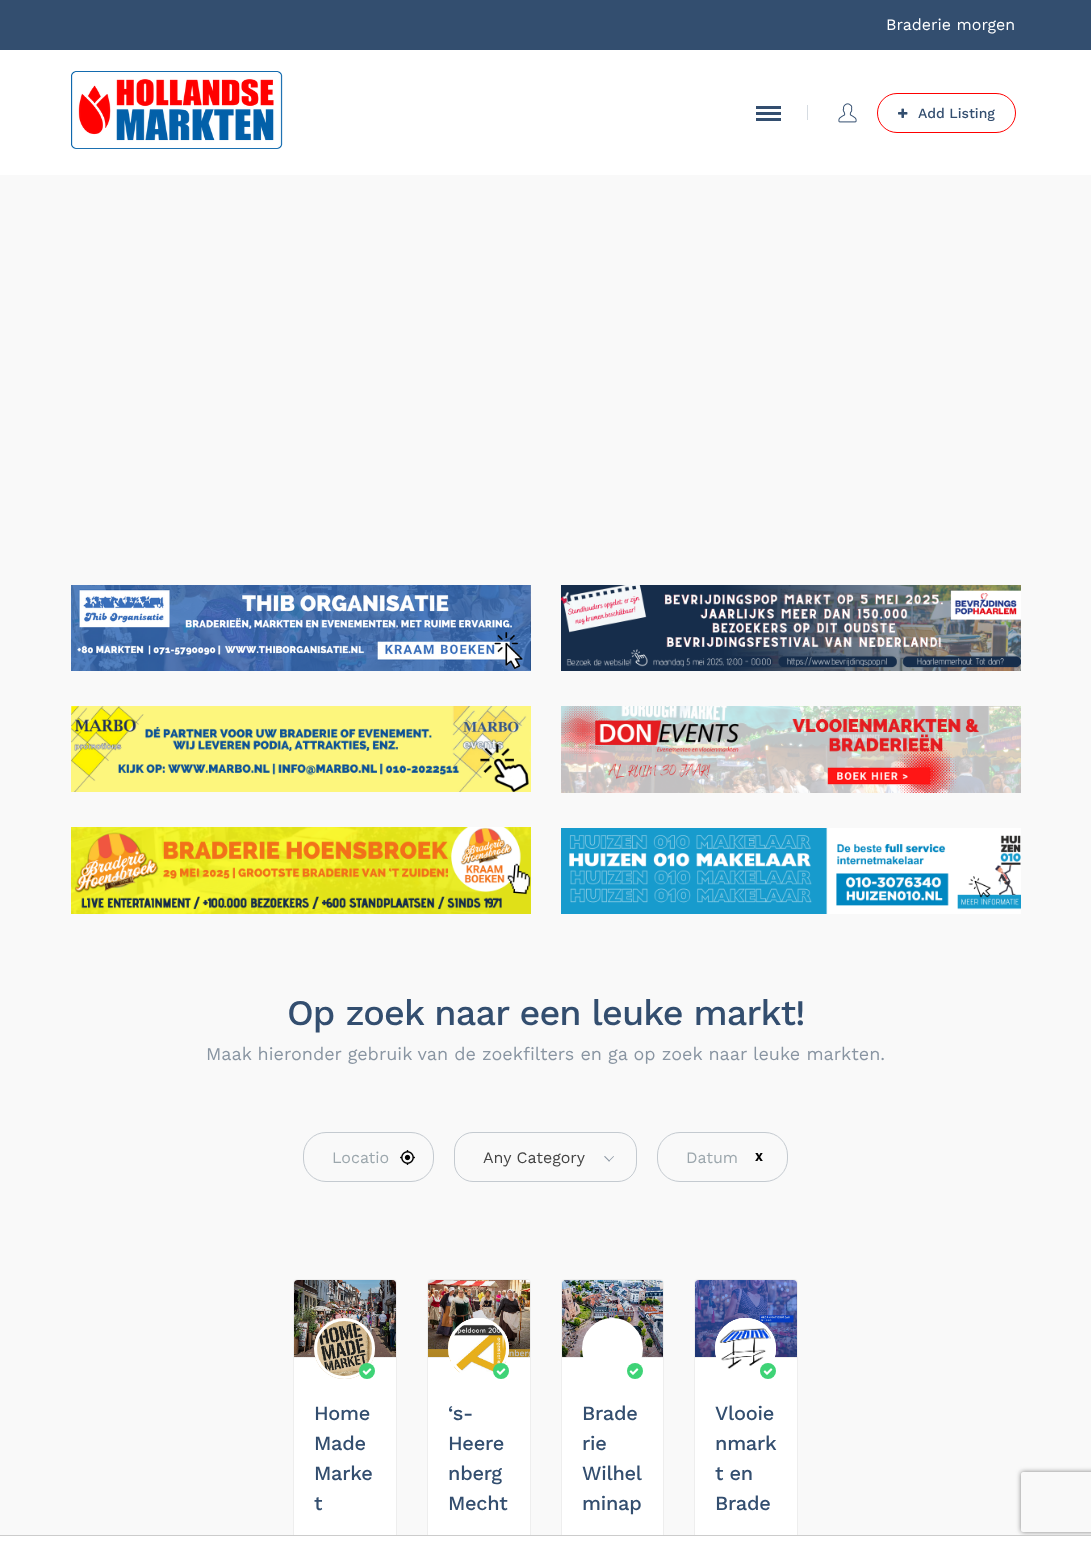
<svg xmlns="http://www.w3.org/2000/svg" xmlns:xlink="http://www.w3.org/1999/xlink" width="1091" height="1546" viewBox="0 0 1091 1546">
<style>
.cls-1{font:16px Work Sans;fill:#ffffff}
.cls-2{font:500 14px Work Sans;fill:#334e6f}
.cls-3{font:500 36px Work Sans;letter-spacing:-0.85px;fill:#334e6f}
.cls-4{font:18px Work Sans;fill:#8995a2}
.cls-5{font:16px Work Sans;fill:#9ca7ad}
.cls-6{font:16px Work Sans;fill:#444444}
.cls-7{font:bold 12px Work Sans;fill:#000000}
.cls-8{font:500 20px Work Sans;letter-spacing:-0.25px;fill:#334e6f}
</style>
<defs>
<linearGradient id="g1" gradientUnits="userSpaceOnUse" x1="345" y1="1277" x2="345" y2="1437"><stop offset="0" stop-color="#000000" stop-opacity="0"/><stop offset="1" stop-color="#000000" stop-opacity="0.5"/></linearGradient>
<linearGradient id="g2" gradientUnits="userSpaceOnUse" x1="479" y1="1277" x2="479" y2="1437"><stop offset="0" stop-color="#000000" stop-opacity="0"/><stop offset="1" stop-color="#000000" stop-opacity="0.5"/></linearGradient>
<linearGradient id="g3" gradientUnits="userSpaceOnUse" x1="613" y1="1277" x2="613" y2="1437"><stop offset="0" stop-color="#000000" stop-opacity="0"/><stop offset="1" stop-color="#000000" stop-opacity="0.5"/></linearGradient>
<linearGradient id="g4" gradientUnits="userSpaceOnUse" x1="746" y1="1277" x2="746" y2="1437"><stop offset="0" stop-color="#000000" stop-opacity="0"/><stop offset="1" stop-color="#000000" stop-opacity="0.5"/></linearGradient>
<clipPath id="clip1"><path d="M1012 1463H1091V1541H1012ZM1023 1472H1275C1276 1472 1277 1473 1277 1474V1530C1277 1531 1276 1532 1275 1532H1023C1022 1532 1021 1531 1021 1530V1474C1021 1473 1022 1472 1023 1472Z" clip-rule="evenodd"/></clipPath>
</defs>
<rect width="100%" height="100%" fill="#f9f9f9"/>
<rect fill="#334e6f" x="0" y="0" width="1091" height="50"/>
<rect fill="#ffffff" x="0" y="50" width="1091" height="125"/>
<image xlink:href="image0.png" x="71" y="71" width="212" height="78"/>
<rect fill="#334e6f" x="756" y="112" width="25" height="3"/>
<rect fill="#334e6f" x="756" y="106" width="25" height="3"/>
<rect fill="#334e6f" x="756" y="118" width="25" height="3"/>
<rect fill="#d6dce2" x="807" y="105" width="1" height="15"/>
<image xlink:href="image1.png" x="838" y="103" width="19" height="20"/>
<rect fill="none" stroke="#ff0000" x="877.5" y="93.5" width="138" height="39" rx="19.5"/>
<image xlink:href="image2.png" x="898" y="108" width="10" height="10"/>
<image xlink:href="image3.png" x="71" y="585" width="460" height="86"/>
<image xlink:href="image4.png" x="71" y="706" width="460" height="86"/>
<image xlink:href="image5.png" x="71" y="827" width="460" height="87"/>
<image xlink:href="image6.png" x="561" y="585" width="460" height="86"/>
<image xlink:href="image7.png" x="561" y="706" width="460" height="87"/>
<image xlink:href="image8.png" x="561" y="828" width="460" height="86"/>
<rect fill="none" stroke="#c4cad0" x="303.5" y="1132.5" width="130" height="49" rx="22.5"/>
<image xlink:href="image9.png" x="400" y="1150" width="15" height="15"/>
<rect fill="none" stroke="#c4cad0" x="454.5" y="1132.5" width="182" height="49" rx="18.5"/>
<path fill="#8995a2" d="M608.5 1161L613.5 1156L614 1156.5L609 1161.5Z"/>
<path fill="#8995a2" d="M604 1156.5L605 1156L610 1161L609 1161.5Z"/>
<rect fill="none" stroke="#c4cad0" x="657.5" y="1132.5" width="130" height="49" rx="22.5"/>
<rect fill="#ffffff" stroke="#eeeeee" x="293.5" y="1279.5" width="103" height="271" rx="3.5"/>
<image xlink:href="image10.png" x="294" y="1280" width="102" height="77"/>
<rect fill="#eeeeee" x="294" y="1357" width="102" height="1"/>
<rect fill="url(#g1)" x="294" y="1284" width="102" height="73"/>
<image xlink:href="image11.png" x="314" y="1318" width="61" height="61"/>
<circle fill="none" stroke="#ffffff" stroke-width="3" cx="344.5" cy="1348.5" r="29"/>
<circle fill="#3ed376" cx="367" cy="1371" r="8"/>
<image xlink:href="image12.png" x="362" y="1368" width="10" height="7"/>
<rect fill="#ffffff" stroke="#eeeeee" x="427.5" y="1279.5" width="103" height="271" rx="3.5"/>
<image xlink:href="image13.png" x="428" y="1280" width="102" height="77"/>
<rect fill="#eeeeee" x="428" y="1357" width="102" height="1"/>
<rect fill="url(#g2)" x="428" y="1284" width="102" height="73"/>
<circle fill="#ffffff" cx="478.5" cy="1348.5" r="30.5"/>
<image xlink:href="image14.png" x="448" y="1318" width="61" height="57"/>
<circle fill="none" stroke="#ffffff" stroke-width="3" cx="478.5" cy="1348.5" r="29"/>
<circle fill="#3ed376" cx="501" cy="1371" r="8"/>
<image xlink:href="image12.png" x="496" y="1368" width="10" height="7"/>
<rect fill="#ffffff" stroke="#eeeeee" x="561.5" y="1279.5" width="102" height="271" rx="3.5"/>
<image xlink:href="image15.png" x="562" y="1280" width="101" height="77"/>
<rect fill="#eeeeee" x="562" y="1357" width="101" height="1"/>
<rect fill="url(#g3)" x="562" y="1284" width="101" height="73"/>
<circle fill="#ffffff" stroke="#ffffff" stroke-width="3" cx="612.5" cy="1348.5" r="29"/>
<circle fill="#3ed376" cx="635" cy="1371" r="8"/>
<image xlink:href="image12.png" x="629" y="1368" width="10" height="7"/>
<rect fill="#ffffff" stroke="#eeeeee" x="694.5" y="1279.5" width="103" height="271" rx="3.5"/>
<image xlink:href="image16.png" x="695" y="1280" width="102" height="77"/>
<rect fill="#eeeeee" x="695" y="1357" width="102" height="1"/>
<rect fill="url(#g4)" x="695" y="1284" width="102" height="73"/>
<circle fill="#ffffff" cx="745.5" cy="1348.5" r="30.5"/>
<image xlink:href="image17.png" x="715" y="1318" width="61" height="51"/>
<circle fill="none" stroke="#ffffff" stroke-width="3" cx="745.5" cy="1348.5" r="29"/>
<circle fill="#3ed376" cx="768" cy="1371" r="8"/>
<image xlink:href="image12.png" x="763" y="1368" width="10" height="7"/>
<g clip-path="url(#clip1)">
<rect fill="#808080" filter="blur(2.5px)" x="1021" y="1472" width="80" height="60" rx="2"/>
</g>
<rect fill="#ffffff" x="0" y="1536" width="1091" height="10"/>
<rect fill="#cccccc" x="0" y="1535" width="1091" height="1"/>
<text class="cls-1" x="886" y="30">Braderie morgen</text>
<text class="cls-2" x="918" y="118">Add Listing</text>
<text class="cls-3" x="287" y="1025">Op zoek naar een leuke markt!</text>
<text class="cls-4" x="206" y="1060">Maak hieronder gebruik van de zoekfilters en ga op zoek naar leuke markten.</text>
<text class="cls-5" x="332" y="1163">Locatio</text>
<text class="cls-6" x="483" y="1163">Any Category</text>
<text class="cls-5" x="686" y="1163">Datum</text>
<text class="cls-7" x="755" y="1161">X</text>
<text class="cls-8"><tspan x="314" y="1420">Home</tspan><tspan x="314" y="1450">Made</tspan><tspan x="314" y="1480">Marke</tspan><tspan x="314" y="1510">t</tspan></text>
<text class="cls-8"><tspan x="448" y="1420">‘s-</tspan><tspan x="448" y="1450">Heere</tspan><tspan x="448" y="1480">nberg</tspan><tspan x="448" y="1510">Mecht</tspan></text>
<text class="cls-8"><tspan x="582" y="1420">Brade</tspan><tspan x="582" y="1450">rie</tspan><tspan x="582" y="1480">Wilhel</tspan><tspan x="582" y="1510">minap</tspan></text>
<text class="cls-8"><tspan x="715" y="1420">Vlooie</tspan><tspan x="715" y="1450">nmark</tspan><tspan x="715" y="1480">t en</tspan><tspan x="715" y="1510">Brade</tspan></text>
</svg>
